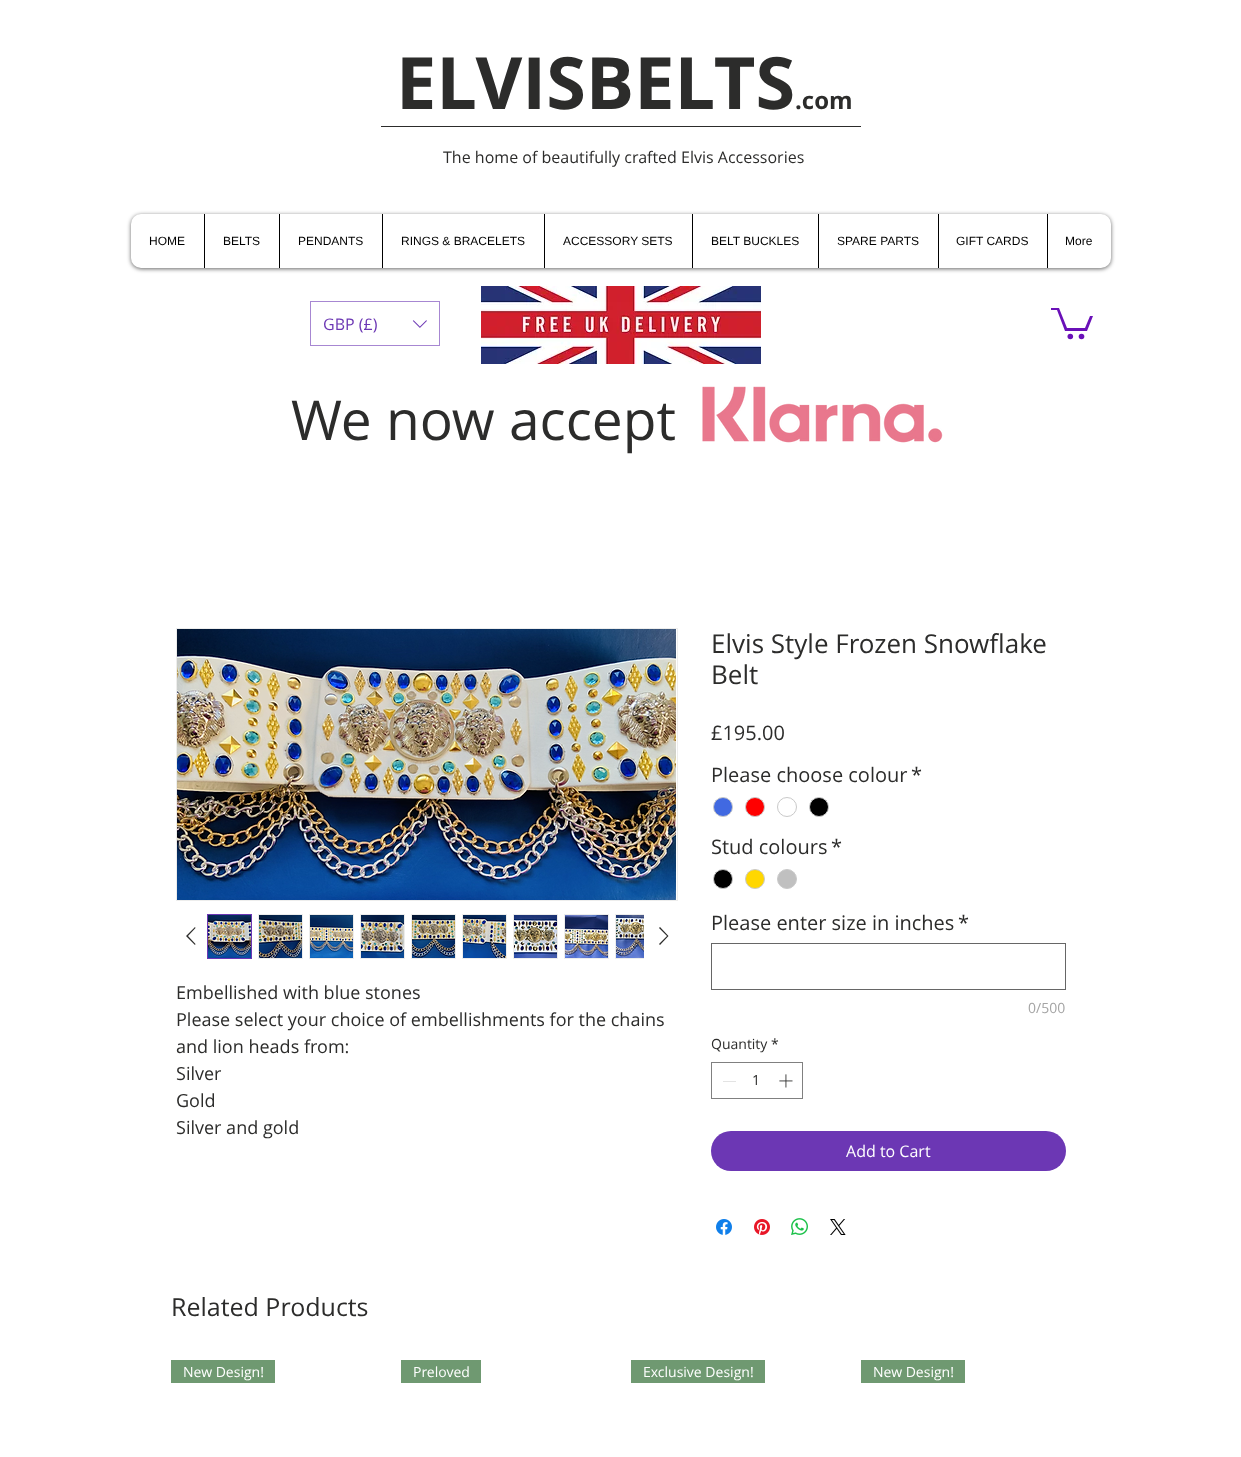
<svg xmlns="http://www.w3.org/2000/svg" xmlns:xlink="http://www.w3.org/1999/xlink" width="1241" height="1457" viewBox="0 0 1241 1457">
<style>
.cls-1{font:bold 72px Open Sans;fill:#2c2c2b}
.cls-2{font:bold 24px Open Sans;fill:#2c2c2b}
.cls-3{font:16px Open Sans;fill:#2c2c2b}
.cls-4{font:12px Liberation Sans;fill:#000000}
.cls-5{font:16px Open Sans;fill:#6c37b4}
.cls-6{font:55px Open Sans;fill:#2c2c2b}
.cls-7{font:18px Open Sans;fill:#2c2c2b}
.cls-8{font:26px Open Sans;fill:#2c2c2b}
.cls-9{font:20px Open Sans;fill:#2c2c2b}
.cls-10{font:14px Open Sans;fill:#a4a4a4}
.cls-11{font:14px Open Sans;fill:#2c2c2b}
.cls-12{font:16px Open Sans;fill:#ffffff}
.cls-13{font:25px Open Sans;fill:#2c2c2b}
.cls-14{font:14px Open Sans;fill:#ffffff}
</style>
<rect width="100%" height="100%" fill="#ffffff"/>
<rect fill="#2c2c2b" x="381" y="126" width="480" height="1"/>
<rect fill="#000000" fill-opacity="0.6" filter="blur(2px)" x="131" y="215" width="980" height="54" rx="10"/>
<rect fill="#ffffff" x="131" y="214" width="980" height="54" rx="10"/>
<rect fill="#000000" x="204" y="214" width="1" height="54"/>
<rect fill="#000000" x="279" y="214" width="1" height="54"/>
<rect fill="#000000" x="382" y="214" width="1" height="54"/>
<rect fill="#000000" x="544" y="214" width="1" height="54"/>
<rect fill="#000000" x="692" y="214" width="1" height="54"/>
<rect fill="#000000" x="818" y="214" width="1" height="54"/>
<rect fill="#000000" x="938" y="214" width="1" height="54"/>
<rect fill="#000000" x="1047" y="214" width="1" height="54"/>
<rect fill="none" stroke="#a787d2" x="310.5" y="301.5" width="129" height="44"/>
<image xlink:href="image0.png" x="412" y="320" width="15" height="8"/>
<image xlink:href="image1.png" x="481" y="286" width="280" height="78"/>
<path fill="#6a10b8" d="M1093 316L1087 331H1065L1057 310H1051V308H1059L1067 328H1085L1090 316"/>
<circle fill="#6a10b8" cx="1081.5" cy="336.5" r="2.8"/>
<circle fill="#6a10b8" cx="1070.3" cy="336.5" r="2.8"/>
<image xlink:href="image2.png" x="702" y="386" width="241" height="57"/>
<rect fill="none" stroke="#ededec" x="176.5" y="628.5" width="501" height="272"/>
<image xlink:href="image3.png" x="177" y="629" width="499" height="271"/>
<path fill="#2c2c2b" fill-rule="evenodd" d="M195 927L195.5 928L188 936L195.5 944L195 945L186 936Z"/>
<rect fill="none" stroke="#6c37b4" x="207.5" y="914.5" width="44" height="44"/>
<image xlink:href="image4.png" x="208" y="915" width="43" height="43"/>
<rect fill="#ededec" x="258" y="914" width="45" height="45"/>
<image xlink:href="image5.png" x="259" y="915" width="43" height="43"/>
<rect fill="#ededec" x="309" y="914" width="45" height="45"/>
<image xlink:href="image6.png" x="310" y="915" width="43" height="43"/>
<rect fill="#ededec" x="360" y="914" width="45" height="45"/>
<image xlink:href="image7.png" x="361" y="915" width="43" height="43"/>
<rect fill="#ededec" x="411" y="914" width="45" height="45"/>
<image xlink:href="image8.png" x="412" y="915" width="43" height="43"/>
<rect fill="#ededec" x="462" y="914" width="45" height="45"/>
<image xlink:href="image9.png" x="463" y="915" width="43" height="43"/>
<rect fill="#ededec" x="513" y="914" width="45" height="45"/>
<image xlink:href="image10.png" x="514" y="915" width="43" height="43"/>
<rect fill="#ededec" x="564" y="914" width="45" height="45"/>
<image xlink:href="image11.png" x="565" y="915" width="43" height="43"/>
<rect fill="#ededec" x="615" y="914" width="29" height="45"/>
<image xlink:href="image12.png" x="616" y="915" width="28" height="43"/>
<path fill="#2c2c2b" fill-rule="evenodd" d="M660 927L668.5 936L660 945L659 944L667 936L659 928Z"/>
<circle fill="#4169e1" stroke="#c9c9c9" cx="723" cy="807" r="9.5"/>
<circle fill="#ff0000" stroke="#c9c9c9" cx="755" cy="807" r="9.5"/>
<circle fill="none" stroke="#c9c9c9" cx="787" cy="807" r="9.5"/>
<circle fill="#000000" stroke="#c9c9c9" cx="819" cy="807" r="9.5"/>
<circle fill="#000000" stroke="#c9c9c9" cx="723" cy="879" r="9.5"/>
<circle fill="#ffd700" stroke="#c9c9c9" cx="755" cy="879" r="9.5"/>
<circle fill="#c0c0c0" stroke="#c9c9c9" cx="787" cy="879" r="9.5"/>
<rect fill="none" stroke="#666666" x="711.5" y="943.5" width="354" height="46"/>
<rect fill="none" stroke="#808080" x="711.5" y="1062.5" width="91" height="36"/>
<rect fill="#e3e3e3" x="723" y="1081" width="13" height="1"/>
<image xlink:href="image13.png" x="779" y="1074" width="14" height="14"/>
<rect fill="#6c37b4" x="711" y="1131" width="355" height="40" rx="20"/>
<image xlink:href="image14.png" x="716" y="1219" width="16" height="16"/>
<image xlink:href="image15.png" x="754" y="1219" width="16" height="16"/>
<image xlink:href="image16.png" x="791" y="1218" width="17" height="17"/>
<image xlink:href="image17.png" x="830" y="1219" width="16" height="16"/>
<rect fill="#6f9971" x="171" y="1360" width="104" height="23"/>
<rect fill="#6f9971" x="401" y="1360" width="80" height="23"/>
<rect fill="#6f9971" x="631" y="1360" width="134" height="23"/>
<rect fill="#6f9971" x="861" y="1360" width="104" height="23"/>
<text class="cls-1" x="396" y="109">ELVISBELTS</text>
<text class="cls-2" x="795" y="109">.com</text>
<text class="cls-3" x="443" y="163">The home of beautifully crafted Elvis Accessories</text>
<text class="cls-4" x="149" y="245">HOME</text>
<text class="cls-4" x="223" y="245">BELTS</text>
<text class="cls-4" x="298" y="245">PENDANTS</text>
<text class="cls-4" x="401" y="245">RINGS &amp; BRACELETS</text>
<text class="cls-4" x="563" y="245">ACCESSORY SETS</text>
<text class="cls-4" x="711" y="245">BELT BUCKLES</text>
<text class="cls-4" x="837" y="245">SPARE PARTS</text>
<text class="cls-4" x="956" y="245">GIFT CARDS</text>
<text class="cls-4" x="1065" y="245">More</text>
<text class="cls-5" x="323" y="330">GBP (£)</text>
<text class="cls-6" x="291" y="440">We now accept</text>
<text class="cls-7"><tspan x="176" y="999">Embellished with blue stones</tspan><tspan x="176" y="1026">Please select your choice of embellishments for the chains</tspan><tspan x="176" y="1053">and lion heads from:</tspan><tspan x="176" y="1080">Silver</tspan><tspan x="176" y="1107">Gold</tspan><tspan x="176" y="1134">Silver and gold</tspan></text>
<text class="cls-8"><tspan x="711" y="653">Elvis Style Frozen Snowflake</tspan><tspan x="711" y="684">Belt</tspan></text>
<text class="cls-9" x="711" y="740">£195.00</text>
<text class="cls-9" x="711" y="782">Please choose colour</text>
<text class="cls-9" x="911" y="782">*</text>
<text class="cls-9" x="711" y="854">Stud colours</text>
<text class="cls-9" x="831" y="854">*</text>
<text class="cls-9" x="711" y="930">Please enter size in inches</text>
<text class="cls-9" x="958" y="930">*</text>
<text class="cls-10" x="1028" y="1013">0/500</text>
<text class="cls-11" x="711" y="1049">Quantity</text>
<text class="cls-11" x="771" y="1049">*</text>
<text class="cls-11" x="752" y="1085">1</text>
<text class="cls-12" x="846" y="1157">Add to Cart</text>
<text class="cls-13" x="171" y="1316">Related Products</text>
<text class="cls-14" x="183" y="1377">New Design!</text>
<text class="cls-14" x="413" y="1377">Preloved</text>
<text class="cls-14" x="643" y="1377">Exclusive Design!</text>
<text class="cls-14" x="873" y="1377">New Design!</text>
</svg>
